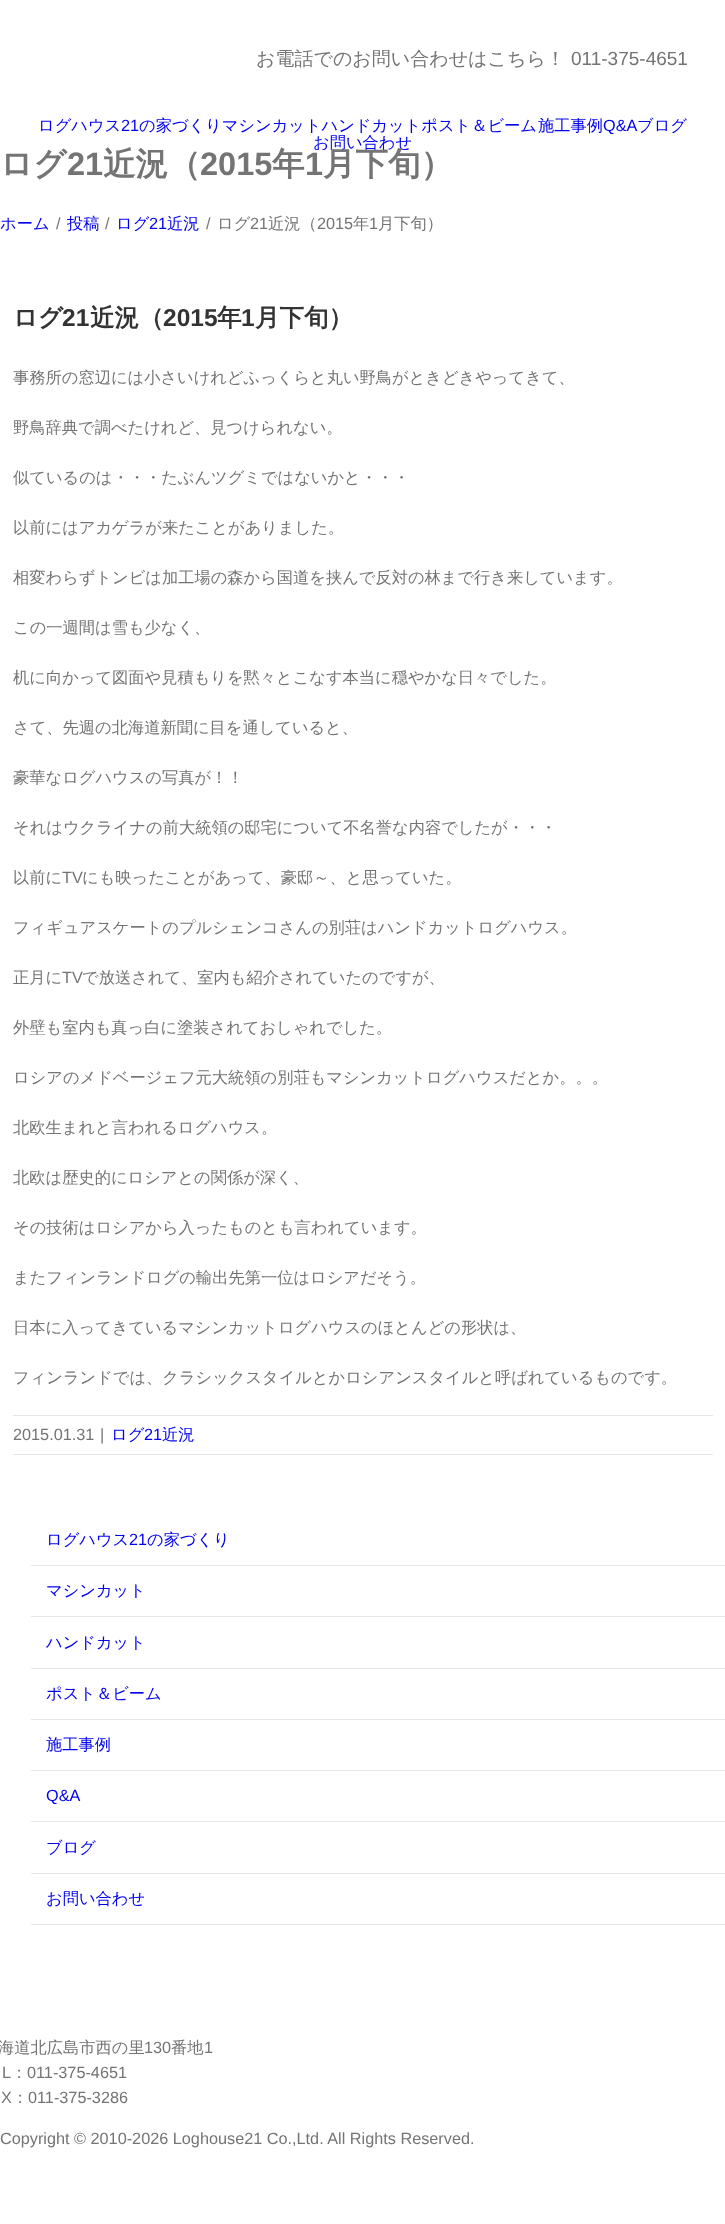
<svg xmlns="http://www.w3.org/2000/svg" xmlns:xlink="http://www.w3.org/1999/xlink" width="725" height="2224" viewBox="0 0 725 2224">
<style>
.cls-1{font:500 19px WenQuanYi Zen Hei;fill:#747474}
.cls-2{font:19px Liberation Sans;fill:#747474}
.cls-3{font:500 16.25px WenQuanYi Zen Hei;fill:#0000ee}
.cls-4{font:16.25px Liberation Sans;fill:#0000ee}
.cls-5{font:bold 32.5px WenQuanYi Zen Hei;fill:#747474}
.cls-6{font:bold 32.5px Liberation Sans;fill:#747474}
.cls-7{font:16.25px Liberation Sans;fill:#747474}
.cls-8{font:500 16.25px WenQuanYi Zen Hei;fill:#747474}
.cls-9{font:bold 24.5px WenQuanYi Zen Hei;fill:#333333}
.cls-10{font:bold 24.5px Liberation Sans;fill:#333333}
</style>
<defs>
<clipPath id="clip1"><rect x="38" y="118" width="650" height="32"/></clipPath>
</defs>
<rect width="100%" height="100%" fill="#ffffff"/>
<rect fill="#e7e6e6" x="13" y="1415" width="700" height="1"/>
<rect fill="#e7e6e6" x="13" y="1454" width="700" height="1"/>
<rect fill="#e7e6e6" x="31" y="1565" width="694" height="1"/>
<rect fill="#e7e6e6" x="31" y="1616" width="694" height="1"/>
<rect fill="#e7e6e6" x="31" y="1668" width="694" height="1"/>
<rect fill="#e7e6e6" x="31" y="1719" width="694" height="1"/>
<rect fill="#e7e6e6" x="31" y="1770" width="694" height="1"/>
<rect fill="#e7e6e6" x="31" y="1821" width="694" height="1"/>
<rect fill="#e7e6e6" x="31" y="1873" width="694" height="1"/>
<rect fill="#e7e6e6" x="31" y="1924" width="694" height="1"/>
<text class="cls-1" x="256" y="65">お電話でのお問い合わせはこちら！</text>
<text class="cls-2" x="571" y="65">011-375-4651</text>
<text class="cls-3" x="38" y="131">ログハウス</text>
<text class="cls-4" x="121" y="131">21</text>
<text class="cls-3" x="139" y="131">の家づくりマシンカットハンドカットポスト＆ビーム</text>
<g clip-path="url(#clip1)">
<text class="cls-3" x="538" y="131">施工事例</text>
</g>
<text class="cls-4" x="603" y="131">Q&amp;A</text>
<text class="cls-3" x="637" y="131">ブログ</text>
<g clip-path="url(#clip1)">
<text class="cls-3" x="313" y="148">お問い合わせ</text>
</g>
<text class="cls-5" x="0" y="175">ログ</text>
<text class="cls-6" x="67" y="175">21</text>
<text class="cls-5" x="103" y="175">近況（</text>
<text class="cls-6" x="200" y="175">2015</text>
<text class="cls-5" x="272" y="175">年</text>
<text class="cls-6" x="305" y="175">1</text>
<text class="cls-5" x="323" y="175">月下旬）</text>
<text class="cls-3" x="0" y="229">ホーム</text>
<text class="cls-7" x="56" y="229">/</text>
<text class="cls-3" x="67" y="229">投稿</text>
<text class="cls-7" x="105" y="229">/</text>
<text class="cls-3" x="116" y="229">ログ</text>
<text class="cls-4" x="149" y="229">21</text>
<text class="cls-3" x="167" y="229">近況</text>
<text class="cls-7" x="206" y="229">/</text>
<text class="cls-8" x="217" y="229">ログ</text>
<text class="cls-7" x="250" y="229">21</text>
<text class="cls-8" x="268" y="229">近況（</text>
<text class="cls-7" x="317" y="229">2015</text>
<text class="cls-8" x="353" y="229">年</text>
<text class="cls-7" x="369" y="229">1</text>
<text class="cls-8" x="378" y="229">月下旬）</text>
<text class="cls-9" x="13" y="326">ログ</text>
<text class="cls-10" x="62" y="326">21</text>
<text class="cls-9" x="90" y="326">近況（</text>
<text class="cls-10" x="163" y="326">2015</text>
<text class="cls-9" x="217" y="326">年</text>
<text class="cls-10" x="241" y="326">1</text>
<text class="cls-9" x="255" y="326">月下旬）</text>
<text class="cls-8" x="13" y="383">事務所の窓辺には小さいけれどふっくらと丸い野鳥がときどきやってきて、</text>
<text class="cls-8" x="13" y="433">野鳥辞典で調べたけれど、見つけられない。</text>
<text class="cls-8" x="13" y="483">似ているのは・・・たぶんツグミではないかと・・・</text>
<text class="cls-8" x="13" y="533">以前にはアカゲラが来たことがありました。</text>
<text class="cls-8" x="13" y="583">相変わらずトンビは加工場の森から国道を挟んで反対の林まで行き来しています。</text>
<text class="cls-8" x="13" y="633">この一週間は雪も少なく、</text>
<text class="cls-8" x="13" y="683">机に向かって図面や見積もりを黙々とこなす本当に穏やかな日々でした。</text>
<text class="cls-8" x="13" y="733">さて、先週の北海道新聞に目を通していると、</text>
<text class="cls-8" x="13" y="783">豪華なログハウスの写真が！！</text>
<text class="cls-8" x="13" y="833">それはウクライナの前大統領の邸宅について不名誉な内容でしたが・・・</text>
<text class="cls-8" x="13" y="883">以前に</text>
<text class="cls-7" x="62" y="883">TV</text>
<text class="cls-8" x="82" y="883">にも映ったことがあって、豪邸～、と思っていた。</text>
<text class="cls-8" x="13" y="933">フィギュアスケートのプルシェンコさんの別荘はハンドカットログハウス。</text>
<text class="cls-8" x="13" y="983">正月に</text>
<text class="cls-7" x="62" y="983">TV</text>
<text class="cls-8" x="82" y="983">で放送されて、室内も紹介されていたのですが、</text>
<text class="cls-8" x="13" y="1033">外壁も室内も真っ白に塗装されておしゃれでした。</text>
<text class="cls-8" x="13" y="1083">ロシアのメドベージェフ元大統領の別荘もマシンカットログハウスだとか。。。</text>
<text class="cls-8" x="13" y="1133">北欧生まれと言われるログハウス。</text>
<text class="cls-8" x="13" y="1183">北欧は歴史的にロシアとの関係が深く、</text>
<text class="cls-8" x="13" y="1233">その技術はロシアから入ったものとも言われています。</text>
<text class="cls-8" x="13" y="1283">またフィンランドログの輸出先第一位はロシアだそう。</text>
<text class="cls-8" x="13" y="1333">日本に入ってきているマシンカットログハウスのほとんどの形状は、</text>
<text class="cls-8" x="13" y="1383">フィンランドでは、クラシックスタイルとかロシアンスタイルと呼ばれているものです。</text>
<text class="cls-7" x="13" y="1440">2015.01.31</text>
<text class="cls-7" x="100" y="1440">|</text>
<text class="cls-3" x="111" y="1440">ログ</text>
<text class="cls-4" x="144" y="1440">21</text>
<text class="cls-3" x="162" y="1440">近況</text>
<text class="cls-3" x="46" y="1545">ログハウス</text>
<text class="cls-4" x="129" y="1545">21</text>
<text class="cls-3" x="147" y="1545">の家づくり</text>
<text class="cls-3" x="46" y="1596">マシンカット</text>
<text class="cls-3" x="46" y="1648">ハンドカット</text>
<text class="cls-3" x="46" y="1699">ポスト＆ビーム</text>
<text class="cls-3" x="46" y="1750">施工事例</text>
<text class="cls-4" x="46" y="1801">Q&amp;A</text>
<text class="cls-3" x="46" y="1853">ブログ</text>
<text class="cls-3" x="46" y="1904">お問い合わせ</text>
<text class="cls-8" x="-2" y="2053">海道北広島市西の里</text>
<text class="cls-7" x="144" y="2053">130</text>
<text class="cls-8" x="171" y="2053">番地</text>
<text class="cls-7" x="204" y="2053">1</text>
<text class="cls-7" x="2" y="2078">L</text>
<text class="cls-8" x="11" y="2078">：</text>
<text class="cls-7" x="27" y="2078">011-375-4651</text>
<text class="cls-7" x="1" y="2103">X</text>
<text class="cls-8" x="12" y="2103">：</text>
<text class="cls-7" x="28" y="2103">011-375-3286</text>
<text class="cls-7" x="0" y="2144">Copyright © 2010-2026 Loghouse21 Co.,Ltd. All Rights Reserved.</text>
</svg>
